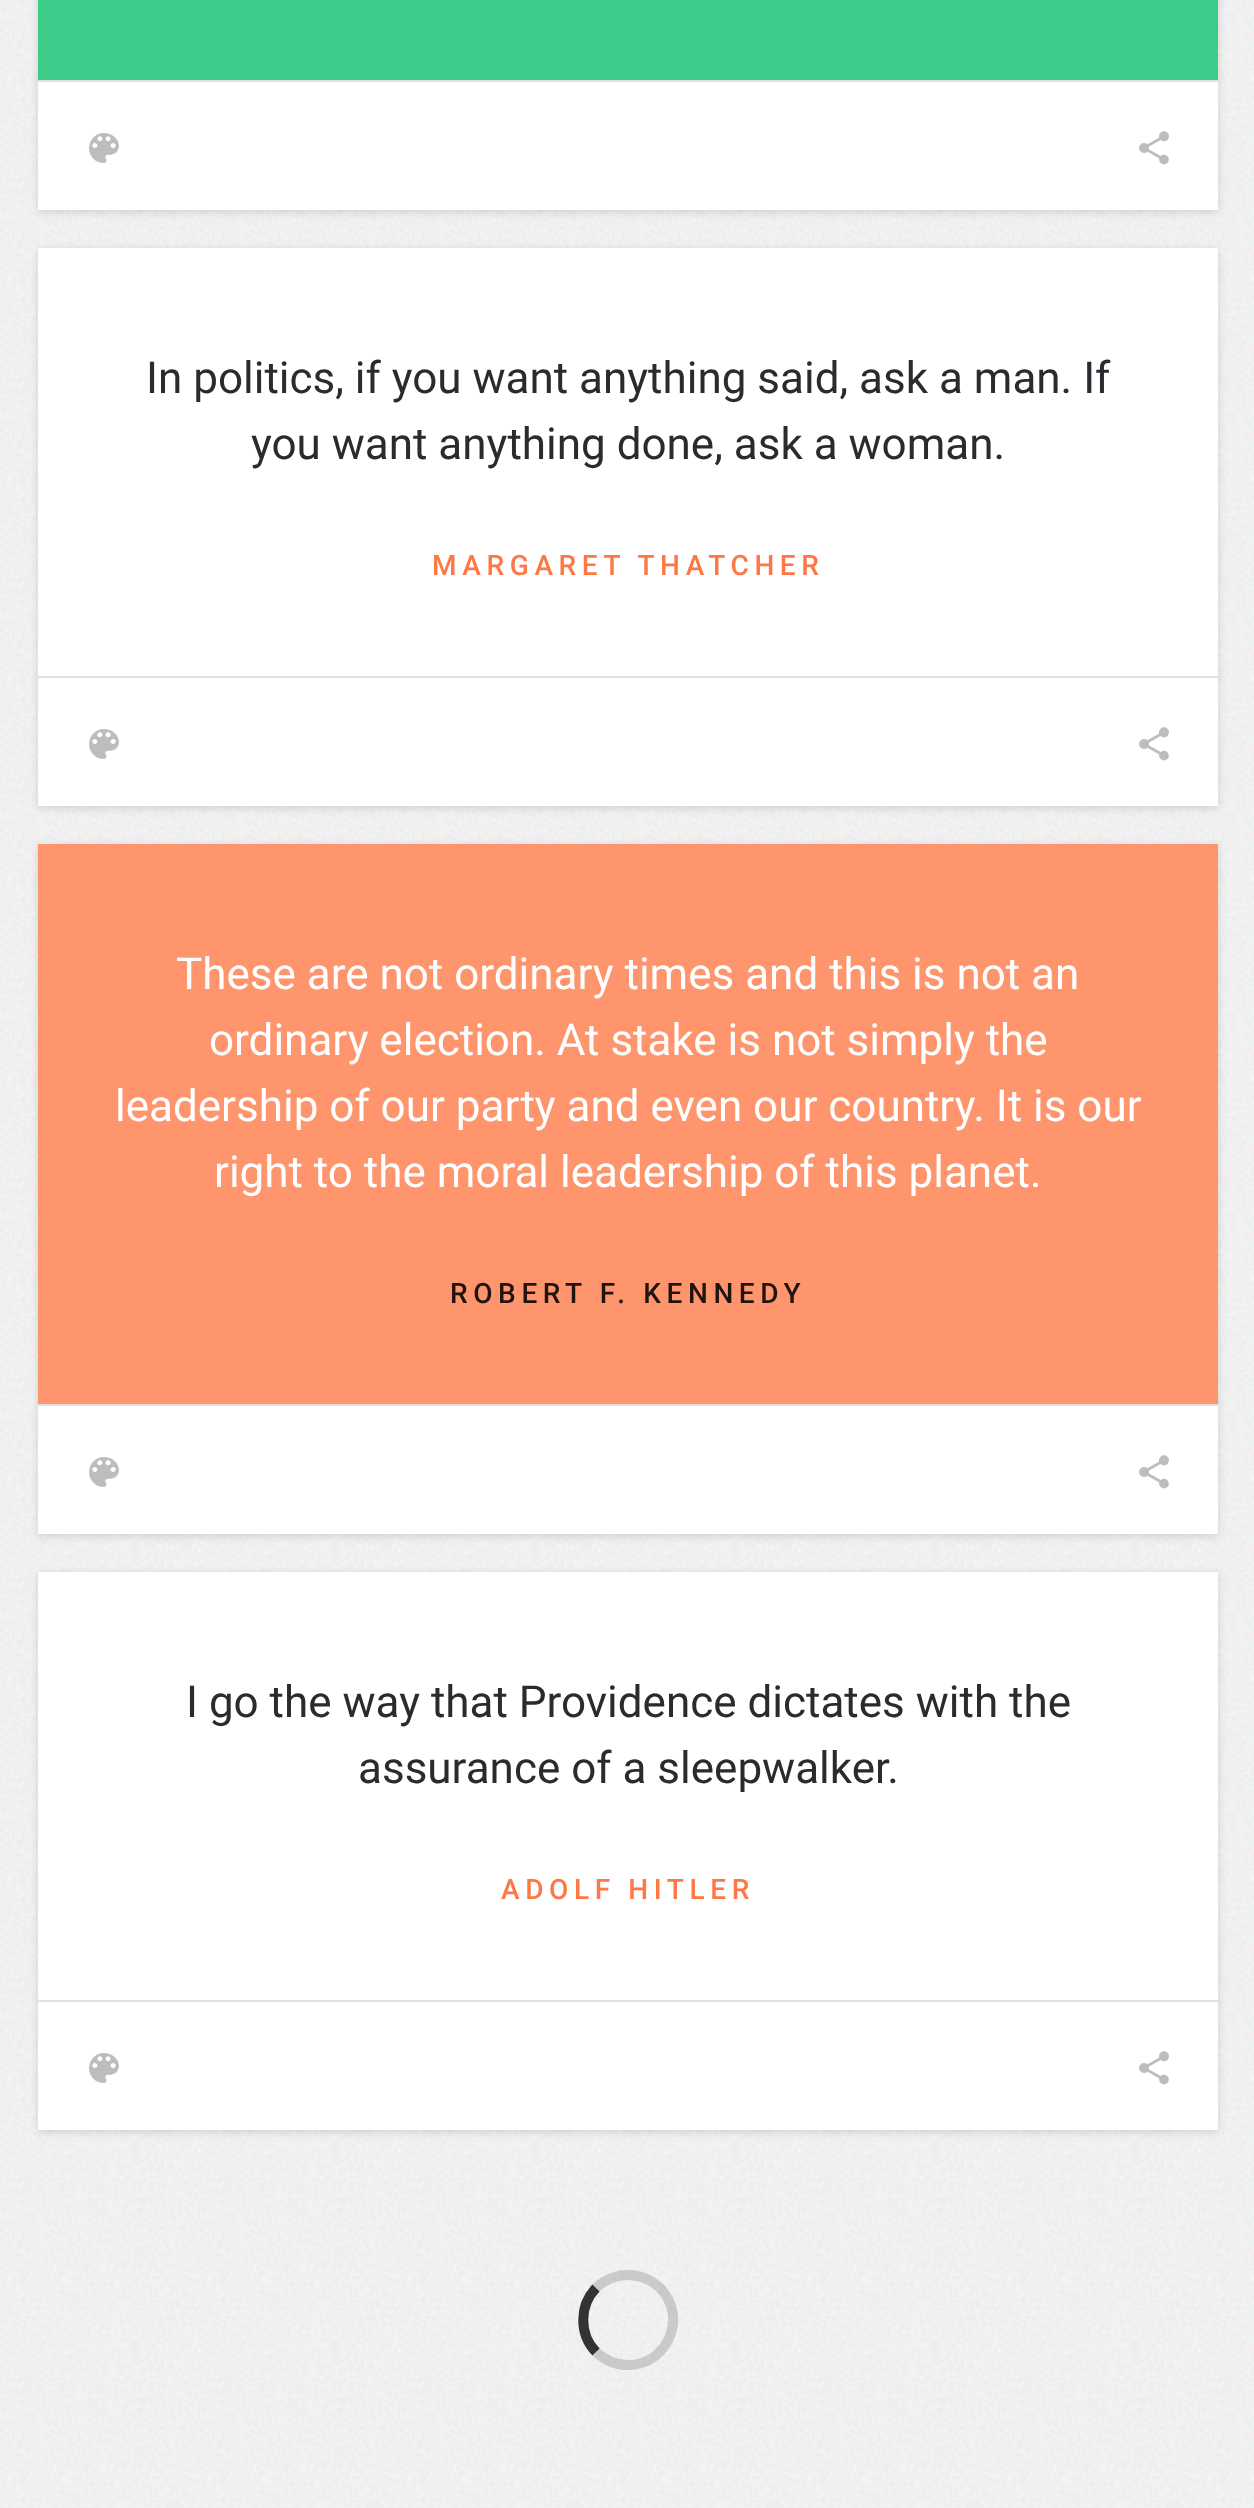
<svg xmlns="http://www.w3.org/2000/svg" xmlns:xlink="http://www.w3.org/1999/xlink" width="1254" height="2508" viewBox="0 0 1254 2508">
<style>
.cls-1{font:44px Roboto;fill:#2a2b2e}
.cls-2{font:500 28px Roboto;letter-spacing:5.6px;fill:#ff7744}
.cls-3{font:44px Roboto;fill:#ffffff}
.cls-4{font:500 28px Roboto;letter-spacing:5.6px;fill:#21130e}
</style>
<rect width="100%" height="100%" fill="#f5f5f5"/>
<image xlink:href="image0.png" x="0" y="0" width="1254" height="2508"/>
<rect fill="#000000" fill-opacity="0.14" filter="blur(4px)" x="38" y="-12" width="1180" height="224"/>
<rect fill="#ffffff" x="38" y="82" width="1180" height="128"/>
<rect fill="#3dcb8a" x="38" y="0" width="1180" height="80"/>
<rect fill="#e0e0e0" x="38" y="80" width="1180" height="2"/>
<image xlink:href="image1.png" x="89" y="133" width="30" height="30"/>
<image xlink:href="image2.png" x="1139" y="131" width="30" height="34"/>
<rect fill="#000000" fill-opacity="0.14" filter="blur(4px)" x="38" y="250" width="1180" height="558"/>
<rect fill="#ffffff" x="38" y="248" width="1180" height="558"/>
<rect fill="#e0e0e0" x="38" y="676" width="1180" height="2"/>
<image xlink:href="image1.png" x="89" y="729" width="30" height="30"/>
<image xlink:href="image2.png" x="1139" y="727" width="30" height="34"/>
<rect fill="#000000" fill-opacity="0.14" filter="blur(4px)" x="38" y="846" width="1180" height="690"/>
<rect fill="#ffffff" x="38" y="1406" width="1180" height="128"/>
<rect fill="#ff956d" x="38" y="844" width="1180" height="560"/>
<rect fill="#e0e0e0" x="38" y="1404" width="1180" height="2"/>
<image xlink:href="image1.png" x="89" y="1457" width="30" height="30"/>
<image xlink:href="image2.png" x="1139" y="1455" width="30" height="34"/>
<rect fill="#000000" fill-opacity="0.14" filter="blur(4px)" x="38" y="1574" width="1180" height="558"/>
<rect fill="#ffffff" x="38" y="1572" width="1180" height="558"/>
<rect fill="#e0e0e0" x="38" y="2000" width="1180" height="2"/>
<image xlink:href="image1.png" x="89" y="2053" width="30" height="30"/>
<image xlink:href="image2.png" x="1139" y="2051" width="30" height="34"/>
<path fill="none" stroke="#333333" stroke-opacity="0.2" stroke-width="10" d="M596 2288C606.5 2277.5 622 2273 637 2276C645.5 2277.5 653.5 2282 660 2288C688 2316.5 668 2365 628 2365C616 2365 604.5 2360 596 2352"/>
<path fill="none" stroke="#333333" stroke-width="10" d="M596 2352C579 2334.5 579 2305.5 596 2288"/>
<text class="cls-1" x="146" y="393">In politics, if you want anything said, ask a man. If</text>
<text class="cls-1" x="251" y="459">you want anything done, ask a woman.</text>
<text class="cls-2" x="432" y="575">MARGARET THATCHER</text>
<text class="cls-3" x="176" y="989">These are not ordinary times and this is not an</text>
<text class="cls-3" x="209" y="1055">ordinary election. At stake is not simply the</text>
<text class="cls-3" x="115" y="1121">leadership of our party and even our country. It is our</text>
<text class="cls-3" x="214" y="1187">right to the moral leadership of this planet.</text>
<text class="cls-4" x="450" y="1303">ROBERT F. KENNEDY</text>
<text class="cls-1" x="186" y="1717">I go the way that Providence dictates with the</text>
<text class="cls-1" x="358" y="1783">assurance of a sleepwalker.</text>
<text class="cls-2" x="501" y="1899">ADOLF HITLER</text>
</svg>
